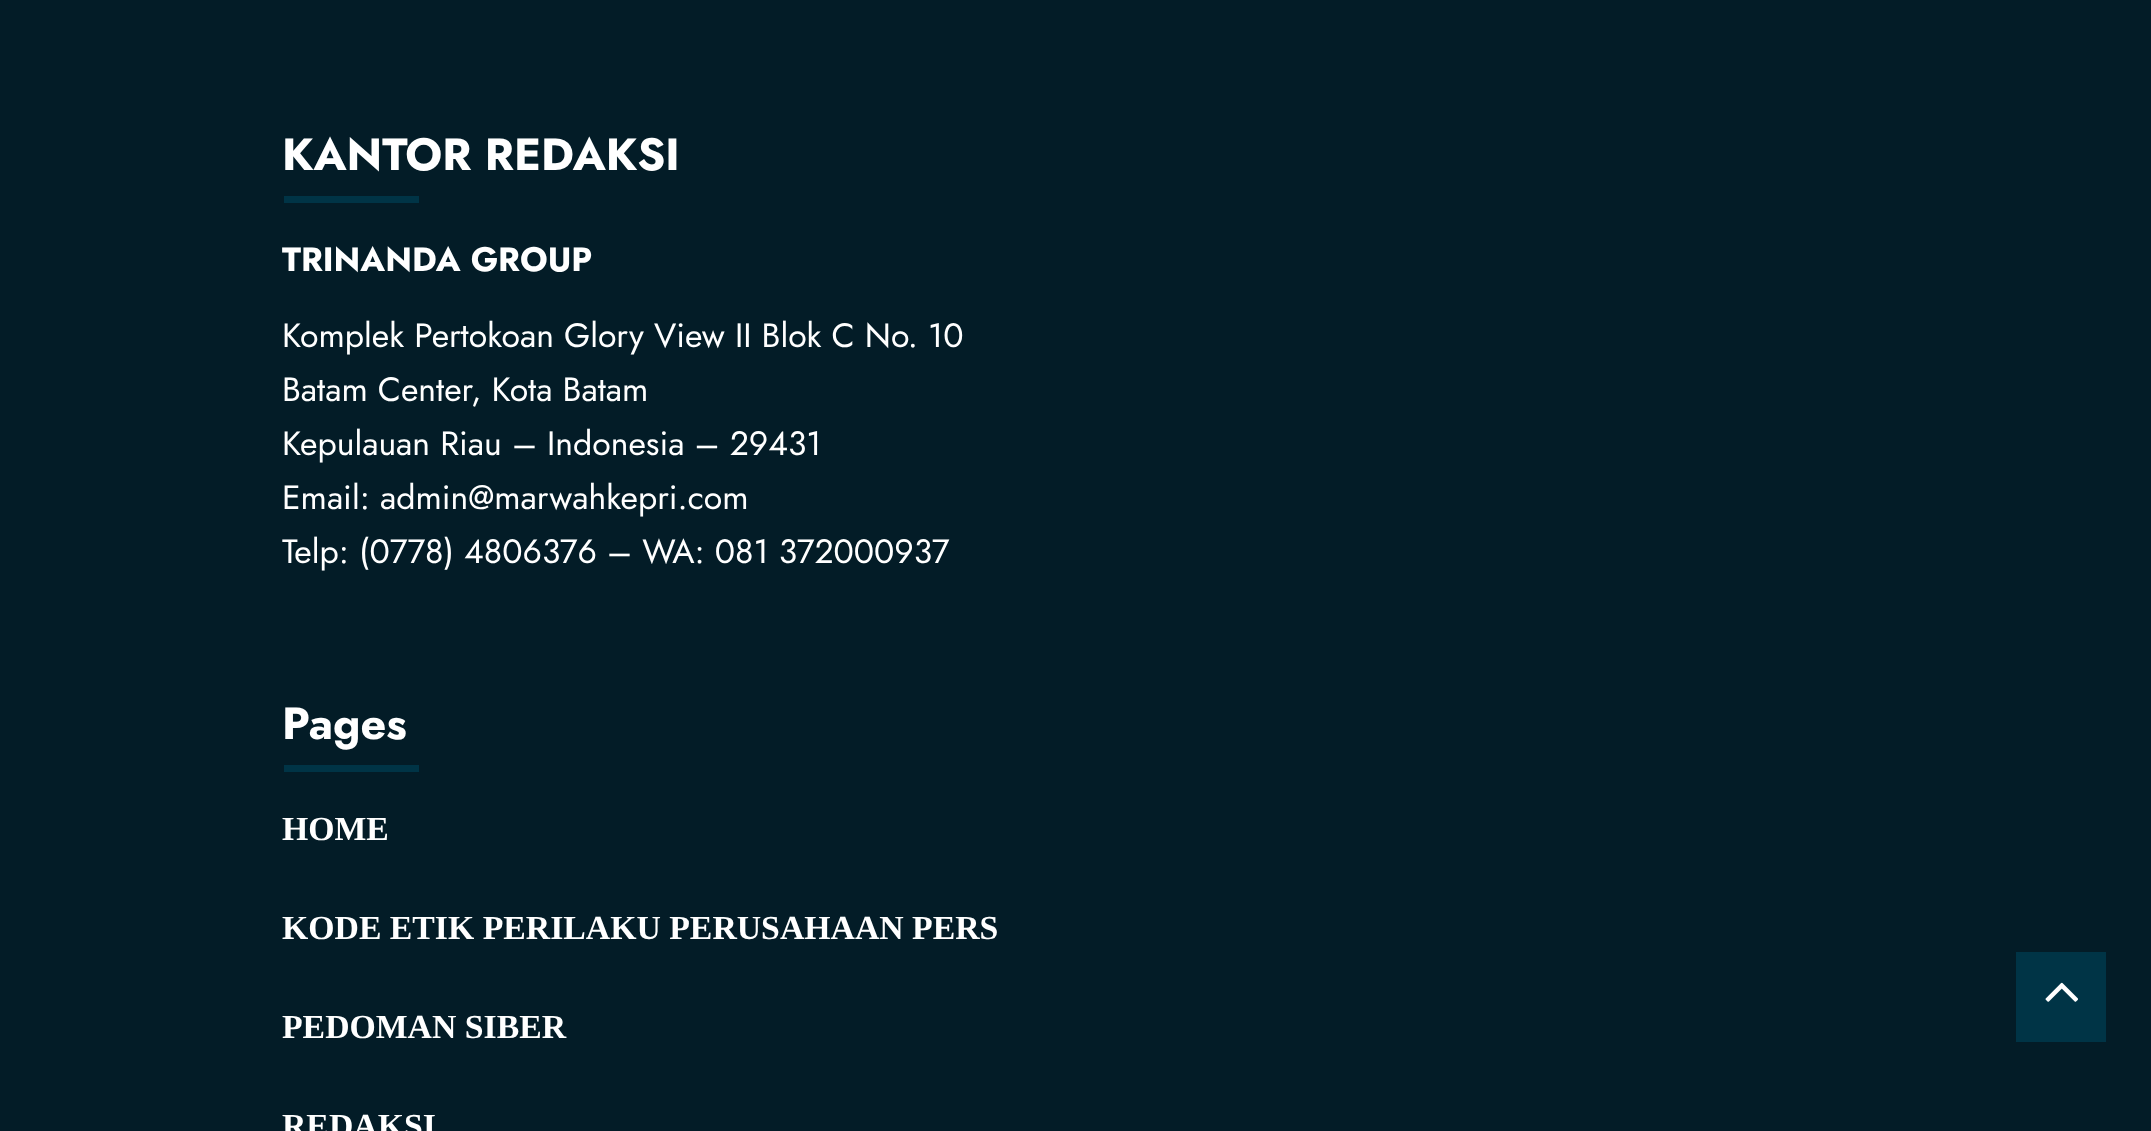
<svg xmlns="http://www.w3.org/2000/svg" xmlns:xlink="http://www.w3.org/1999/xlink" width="2151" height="1131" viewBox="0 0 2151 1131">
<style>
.cls-1{font:bold 45px Jost;fill:#ffffff}
.cls-2{font:bold 33.75px Jost;fill:#ffffff}
.cls-3{font:33.75px Jost;fill:#ffffff}
.cls-4{font:bold 33.75px Liberation Serif;fill:#ffffff}
</style>
<rect width="100%" height="100%" fill="#031c27"/>
<rect fill="#003446" x="284" y="196" width="135" height="7"/>
<rect fill="#003446" x="284" y="765" width="135" height="7"/>
<rect fill="#003446" x="2016" y="952" width="90" height="90"/>
<image xlink:href="image0.png" x="2045" y="982" width="33" height="20"/>
<text class="cls-1" x="282" y="170">KANTOR REDAKSI</text>
<text class="cls-2" x="282" y="271">TRINANDA GROUP</text>
<text class="cls-3"><tspan x="282" y="347">Komplek Pertokoan Glory View II Blok C No. 10</tspan><tspan x="282" y="401">Batam Center, Kota Batam</tspan><tspan x="282" y="455">Kepulauan Riau – Indonesia – 29431</tspan><tspan x="282" y="509">Email: admin@marwahkepri.com</tspan><tspan x="282" y="563">Telp: (0778) 4806376 – WA: 081 372000937</tspan></text>
<text class="cls-1" x="282" y="739">Pages</text>
<text class="cls-4" x="282" y="840">HOME</text>
<text class="cls-4" x="282" y="939">KODE ETIK PERILAKU PERUSAHAAN PERS</text>
<text class="cls-4" x="282" y="1038">PEDOMAN SIBER</text>
<text class="cls-4" x="282" y="1137">REDAKSI</text>
</svg>
